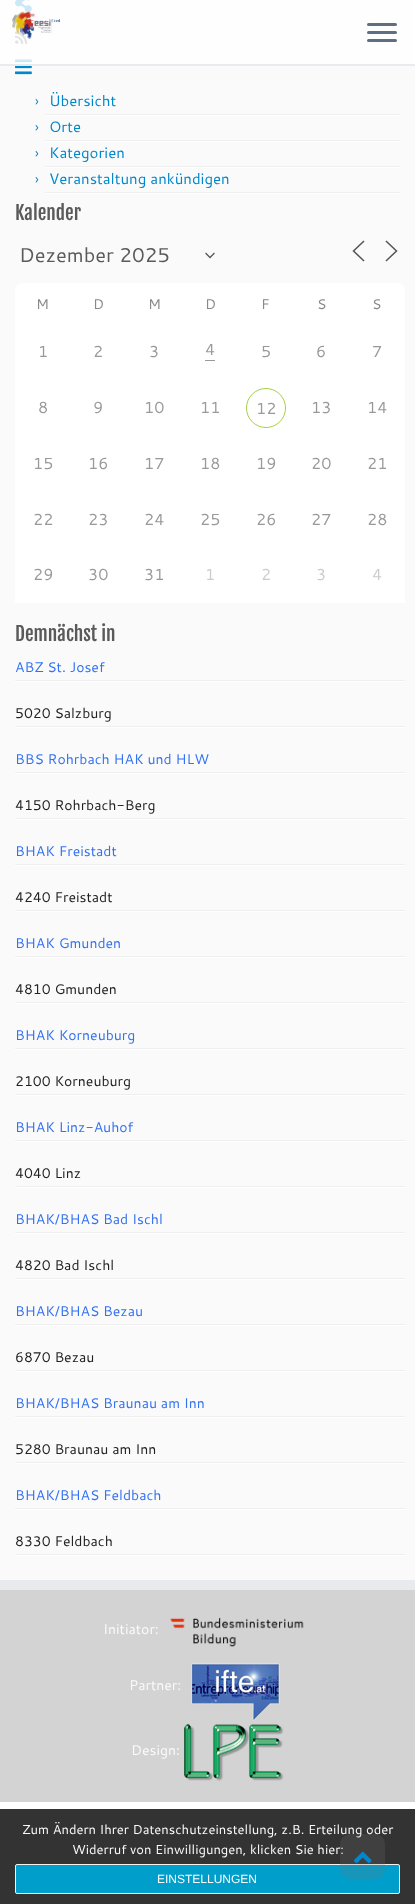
<svg xmlns="http://www.w3.org/2000/svg" xmlns:xlink="http://www.w3.org/1999/xlink" width="415" height="1904" viewBox="0 0 415 1904">
<style>
.cls-1{font:14px Cantarell;fill:#0088cc}
.cls-2{font:15px Cantarell;fill:#0088cc}
.cls-3{font:19.25px Fjalla One;fill:#5a5a5a}
.cls-4{font:20px Cantarell;fill:#5a5a5a}
.cls-5{font:14px Cantarell;fill:#888888}
.cls-6{font:16px Cantarell;fill:#999999}
.cls-7{font:16px Cantarell;fill:#cccccc}
.cls-8{font:14px Cantarell;fill:#3372f0}
.cls-9{font:14px Cantarell;fill:#212121}
.cls-10{font:14px Cantarell;fill:#fafafa}
.cls-11{font:13px Cantarell;fill:#fafafa}
.cls-12{font:12px Liberation Sans;fill:#fafafa}
</style>
<rect width="100%" height="100%" fill="#fafafa"/>
<image xlink:href="image1.png" x="15" y="0" width="17" height="13"/>
<image xlink:href="image2.png" x="15" y="31" width="13" height="13"/>
<image xlink:href="image3.png" x="15" y="59" width="17" height="16"/>
<rect fill="#ffffff" fill-opacity="0.8" x="0" y="0" width="415" height="64"/>
<rect fill="#e9eaee" x="0" y="64" width="415" height="2"/>
<image xlink:href="image0.png" x="12" y="11" width="48" height="28"/>
<rect fill="#5f6f81" x="367" y="23" width="30" height="3" rx="1.5"/>
<rect fill="#5f6f81" x="367" y="31" width="30" height="3" rx="1.5"/>
<rect fill="#5f6f81" x="367" y="39" width="30" height="3" rx="1.5"/>
<rect fill="#eeeeee" x="45" y="114" width="355" height="1"/>
<rect fill="#ffffff" x="45" y="115" width="355" height="1"/>
<rect fill="#eeeeee" x="45" y="140" width="355" height="1"/>
<rect fill="#ffffff" x="45" y="141" width="355" height="1"/>
<rect fill="#eeeeee" x="45" y="166" width="355" height="1"/>
<rect fill="#ffffff" x="45" y="167" width="355" height="1"/>
<rect fill="#eeeeee" x="45" y="192" width="355" height="1"/>
<rect fill="#ffffff" x="45" y="193" width="355" height="1"/>
<path fill="none" stroke="#555555" stroke-width="1.3" stroke-linecap="square" d="M206 253.5L210 257.5L214 253.5"/>
<path fill="none" stroke="#555555" stroke-width="1.5" stroke-linecap="square" d="M363.5 260.5L353.5 251L363.5 241.5M386.5 260.5L396.5 251L386.5 241.5"/>
<path fill="#ffffff" d="M23 283H397C401.5 283 405 286.5 405 291V325H15V291C15 286.5 18.5 283 23 283Z"/>
<rect fill="#ffffff" x="15" y="325" width="390" height="278"/>
<rect fill="#999999" x="205" y="360" width="10" height="1"/>
<circle fill="none" stroke="#a8d144" cx="266" cy="408" r="19.5"/>
<rect fill="#eeeeee" x="15" y="680" width="390" height="1"/>
<rect fill="#ffffff" x="15" y="681" width="390" height="1"/>
<rect fill="#eeeeee" x="15" y="726" width="390" height="1"/>
<rect fill="#ffffff" x="15" y="727" width="390" height="1"/>
<rect fill="#eeeeee" x="15" y="772" width="390" height="1"/>
<rect fill="#ffffff" x="15" y="773" width="390" height="1"/>
<rect fill="#eeeeee" x="15" y="818" width="390" height="1"/>
<rect fill="#ffffff" x="15" y="819" width="390" height="1"/>
<rect fill="#eeeeee" x="15" y="864" width="390" height="1"/>
<rect fill="#ffffff" x="15" y="865" width="390" height="1"/>
<rect fill="#eeeeee" x="15" y="910" width="390" height="1"/>
<rect fill="#ffffff" x="15" y="911" width="390" height="1"/>
<rect fill="#eeeeee" x="15" y="956" width="390" height="1"/>
<rect fill="#ffffff" x="15" y="957" width="390" height="1"/>
<rect fill="#eeeeee" x="15" y="1002" width="390" height="1"/>
<rect fill="#ffffff" x="15" y="1003" width="390" height="1"/>
<rect fill="#eeeeee" x="15" y="1048" width="390" height="1"/>
<rect fill="#ffffff" x="15" y="1049" width="390" height="1"/>
<rect fill="#eeeeee" x="15" y="1094" width="390" height="1"/>
<rect fill="#ffffff" x="15" y="1095" width="390" height="1"/>
<rect fill="#eeeeee" x="15" y="1140" width="390" height="1"/>
<rect fill="#ffffff" x="15" y="1141" width="390" height="1"/>
<rect fill="#eeeeee" x="15" y="1186" width="390" height="1"/>
<rect fill="#ffffff" x="15" y="1187" width="390" height="1"/>
<rect fill="#eeeeee" x="15" y="1232" width="390" height="1"/>
<rect fill="#ffffff" x="15" y="1233" width="390" height="1"/>
<rect fill="#eeeeee" x="15" y="1278" width="390" height="1"/>
<rect fill="#ffffff" x="15" y="1279" width="390" height="1"/>
<rect fill="#eeeeee" x="15" y="1324" width="390" height="1"/>
<rect fill="#ffffff" x="15" y="1325" width="390" height="1"/>
<rect fill="#eeeeee" x="15" y="1370" width="390" height="1"/>
<rect fill="#ffffff" x="15" y="1371" width="390" height="1"/>
<rect fill="#eeeeee" x="15" y="1416" width="390" height="1"/>
<rect fill="#ffffff" x="15" y="1417" width="390" height="1"/>
<rect fill="#eeeeee" x="15" y="1462" width="390" height="1"/>
<rect fill="#ffffff" x="15" y="1463" width="390" height="1"/>
<rect fill="#eeeeee" x="15" y="1508" width="390" height="1"/>
<rect fill="#ffffff" x="15" y="1509" width="390" height="1"/>
<rect fill="#eeeeee" x="15" y="1554" width="390" height="1"/>
<rect fill="#ffffff" x="15" y="1555" width="390" height="1"/>
<rect fill="#d3d3d3" x="0" y="1590" width="415" height="212"/>
<rect fill="#e9eaee" x="0" y="1580" width="415" height="10"/>
<image xlink:href="image4.png" x="170" y="1617" width="134" height="30"/>
<image xlink:href="image5.png" x="191" y="1663" width="89" height="58"/>
<image xlink:href="image6.png" x="184" y="1724" width="100" height="57"/>
<rect fill="#ffffff" x="0" y="1802" width="415" height="7"/>
<rect fill="#333333" x="0" y="1809" width="415" height="95"/>
<rect fill="#009ecb" stroke="#f3f3f3" x="15.5" y="1864.5" width="384" height="29" rx="1.5"/>
<text class="cls-1" x="35" y="106">›</text>
<text class="cls-2" x="49" y="106">Übersicht</text>
<text class="cls-1" x="35" y="132">›</text>
<text class="cls-2" x="49" y="132">Orte</text>
<text class="cls-1" x="35" y="158">›</text>
<text class="cls-2" x="49" y="158">Kategorien</text>
<text class="cls-1" x="35" y="184">›</text>
<text class="cls-2" x="49" y="184">Veranstaltung ankündigen</text>
<text class="cls-3" x="15" y="220">Kalender</text>
<text class="cls-4" x="19" y="262">Dezember 2025</text>
<text class="cls-5" x="36" y="309">M</text>
<text class="cls-5" x="93" y="309">D</text>
<text class="cls-5" x="148" y="309">M</text>
<text class="cls-5" x="205" y="309">D</text>
<text class="cls-5" x="261" y="309">F</text>
<text class="cls-5" x="317" y="309">S</text>
<text class="cls-5" x="372" y="309">S</text>
<text class="cls-6" x="38" y="357">1</text>
<text class="cls-6" x="93" y="357">2</text>
<text class="cls-6" x="149" y="357">3</text>
<text class="cls-6" x="205" y="355">4</text>
<text class="cls-6" x="261" y="357">5</text>
<text class="cls-6" x="316" y="357">6</text>
<text class="cls-6" x="372" y="357">7</text>
<text class="cls-6" x="38" y="413">8</text>
<text class="cls-6" x="93" y="413">9</text>
<text class="cls-6" x="144" y="413">10</text>
<text class="cls-6" x="200" y="413">11</text>
<text class="cls-6" x="256" y="414">12</text>
<text class="cls-6" x="311" y="413">13</text>
<text class="cls-6" x="367" y="413">14</text>
<text class="cls-6" x="33" y="469">15</text>
<text class="cls-6" x="88" y="469">16</text>
<text class="cls-6" x="144" y="469">17</text>
<text class="cls-6" x="200" y="469">18</text>
<text class="cls-6" x="256" y="469">19</text>
<text class="cls-6" x="311" y="469">20</text>
<text class="cls-6" x="367" y="469">21</text>
<text class="cls-6" x="33" y="525">22</text>
<text class="cls-6" x="88" y="525">23</text>
<text class="cls-6" x="144" y="525">24</text>
<text class="cls-6" x="200" y="525">25</text>
<text class="cls-6" x="256" y="525">26</text>
<text class="cls-6" x="311" y="525">27</text>
<text class="cls-6" x="367" y="525">28</text>
<text class="cls-6" x="33" y="580">29</text>
<text class="cls-6" x="88" y="580">30</text>
<text class="cls-6" x="144" y="580">31</text>
<text class="cls-7" x="205" y="580">1</text>
<text class="cls-7" x="261" y="580">2</text>
<text class="cls-7" x="316" y="580">3</text>
<text class="cls-7" x="372" y="580">4</text>
<text class="cls-3" x="15" y="641">Demnächst in</text>
<text class="cls-8" x="15" y="672">ABZ St. Josef</text>
<text class="cls-9" x="15" y="718">5020 Salzburg</text>
<text class="cls-8" x="15" y="764">BBS Rohrbach HAK und HLW</text>
<text class="cls-9" x="15" y="810">4150 Rohrbach-Berg</text>
<text class="cls-8" x="15" y="856">BHAK Freistadt</text>
<text class="cls-9" x="15" y="902">4240 Freistadt</text>
<text class="cls-8" x="15" y="948">BHAK Gmunden</text>
<text class="cls-9" x="15" y="994">4810 Gmunden</text>
<text class="cls-8" x="15" y="1040">BHAK Korneuburg</text>
<text class="cls-9" x="15" y="1086">2100 Korneuburg</text>
<text class="cls-8" x="15" y="1132">BHAK Linz-Auhof</text>
<text class="cls-9" x="15" y="1178">4040 Linz</text>
<text class="cls-8" x="15" y="1224">BHAK/BHAS Bad Ischl</text>
<text class="cls-9" x="15" y="1270">4820 Bad Ischl</text>
<text class="cls-8" x="15" y="1316">BHAK/BHAS Bezau</text>
<text class="cls-9" x="15" y="1362">6870 Bezau</text>
<text class="cls-8" x="15" y="1408">BHAK/BHAS Braunau am Inn</text>
<text class="cls-9" x="15" y="1454">5280 Braunau am Inn</text>
<text class="cls-8" x="15" y="1500">BHAK/BHAS Feldbach</text>
<text class="cls-9" x="15" y="1546">8330 Feldbach</text>
<text class="cls-10" x="103" y="1634">Initiator:</text>
<text class="cls-10" x="129" y="1690">Partner:</text>
<text class="cls-10" x="131" y="1755">Design:</text>
<text class="cls-11" x="22" y="1834">Zum Ändern Ihrer Datenschutzeinstellung, z.B. Erteilung oder</text>
<text class="cls-11" x="72" y="1854">Widerruf von Einwilligungen, klicken Sie hier:</text>
<text class="cls-12" x="157" y="1883">EINSTELLUNGEN</text>
<rect fill="#777777" fill-opacity="0.2" x="340" y="1834" width="45" height="45" rx="10"/>
<image xlink:href="image7.png" x="354" y="1851" width="18" height="13"/>
</svg>
